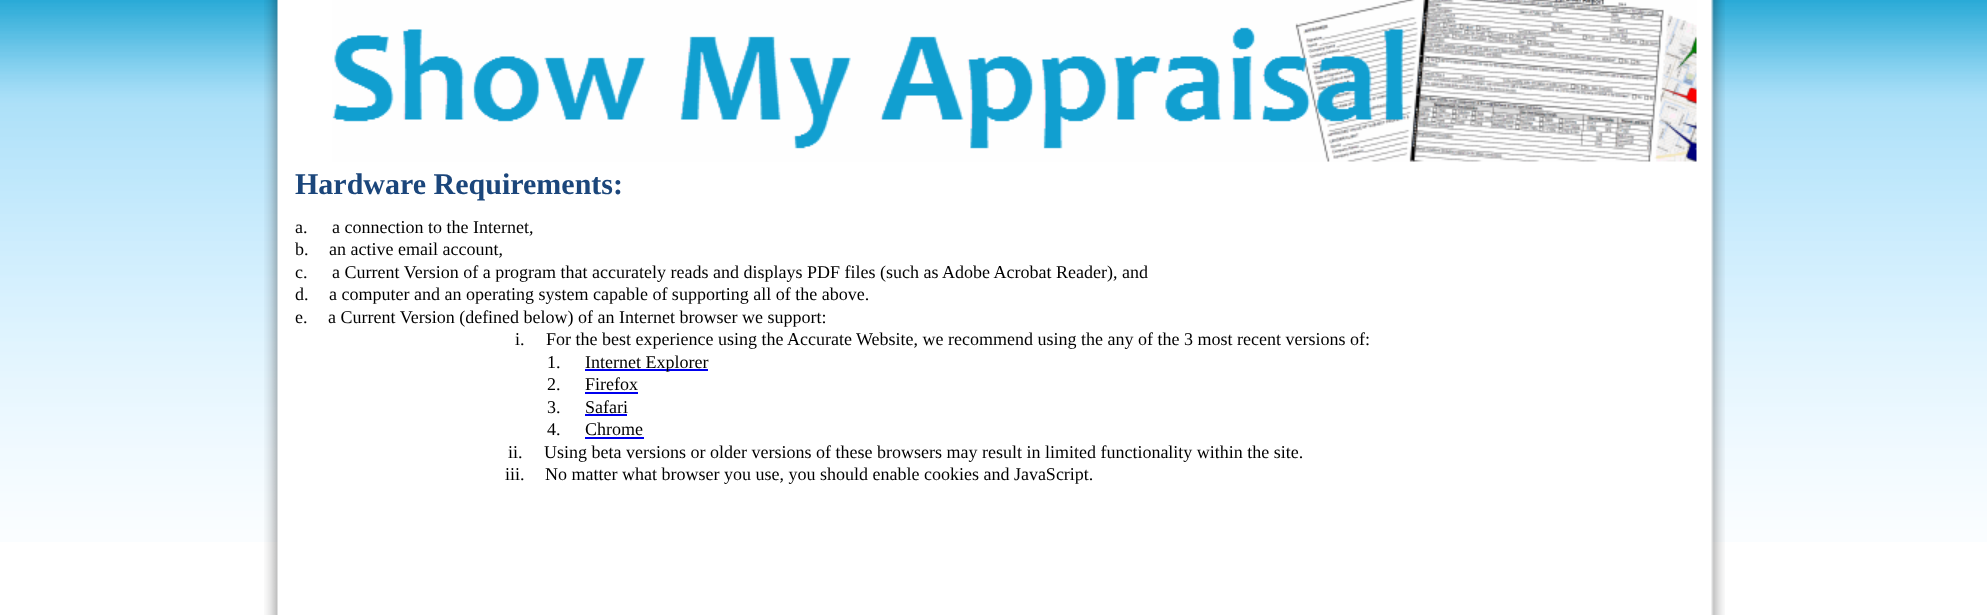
<svg xmlns="http://www.w3.org/2000/svg" xmlns:xlink="http://www.w3.org/1999/xlink" width="1987" height="615" viewBox="0 0 1987 615">
<style>
.cls-1{font:bold 30px Liberation Serif;fill:#1b467b}
.cls-2{font:18px Liberation Serif;fill:#000000}
</style>
<rect width="100%" height="100%" fill="#ffffff"/>
<image xlink:href="image0.png" x="0" y="0" width="1987" height="542"/>
<image xlink:href="image1.png" x="264" y="0" width="1461" height="615"/>
<image xlink:href="image2.png" x="332" y="0" width="1365" height="162"/>
<rect fill="#0000ee" x="585" y="369" width="123" height="2"/>
<rect fill="#0000ee" x="585" y="392" width="53" height="2"/>
<rect fill="#0000ee" x="585" y="414" width="42" height="2"/>
<rect fill="#0000ee" x="585" y="437" width="59" height="2"/>
<text class="cls-1" x="295" y="194">Hardware Requirements:</text>
<text class="cls-2" x="295" y="233">a.</text>
<text class="cls-2" x="332" y="233">a connection to the Internet,</text>
<text class="cls-2" x="295" y="255">b.</text>
<text class="cls-2" x="329" y="255">an active email account,</text>
<text class="cls-2" x="295" y="278">c.</text>
<text class="cls-2" x="332" y="278">a Current Version of a program that accurately reads and displays PDF files (such as Adobe Acrobat Reader), and</text>
<text class="cls-2" x="295" y="300">d.</text>
<text class="cls-2" x="329" y="300">a computer and an operating system capable of supporting all of the above.</text>
<text class="cls-2" x="295" y="323">e.</text>
<text class="cls-2" x="328" y="323">a Current Version (defined below) of an Internet browser we support:</text>
<text class="cls-2" x="515" y="345">i.</text>
<text class="cls-2" x="546" y="345">For the best experience using the Accurate Website, we recommend using the any of the 3 most recent versions of:</text>
<text class="cls-2" x="547" y="368">1.</text>
<text class="cls-2" x="585" y="368">Internet Explorer</text>
<text class="cls-2" x="547" y="390">2.</text>
<text class="cls-2" x="585" y="390">Firefox</text>
<text class="cls-2" x="547" y="413">3.</text>
<text class="cls-2" x="585" y="413">Safari</text>
<text class="cls-2" x="547" y="435">4.</text>
<text class="cls-2" x="585" y="435">Chrome</text>
<text class="cls-2" x="508" y="458">ii.</text>
<text class="cls-2" x="544" y="458">Using beta versions or older versions of these browsers may result in limited functionality within the site.</text>
<text class="cls-2" x="505" y="480">iii.</text>
<text class="cls-2" x="545" y="480">No matter what browser you use, you should enable cookies and JavaScript.</text>
</svg>
